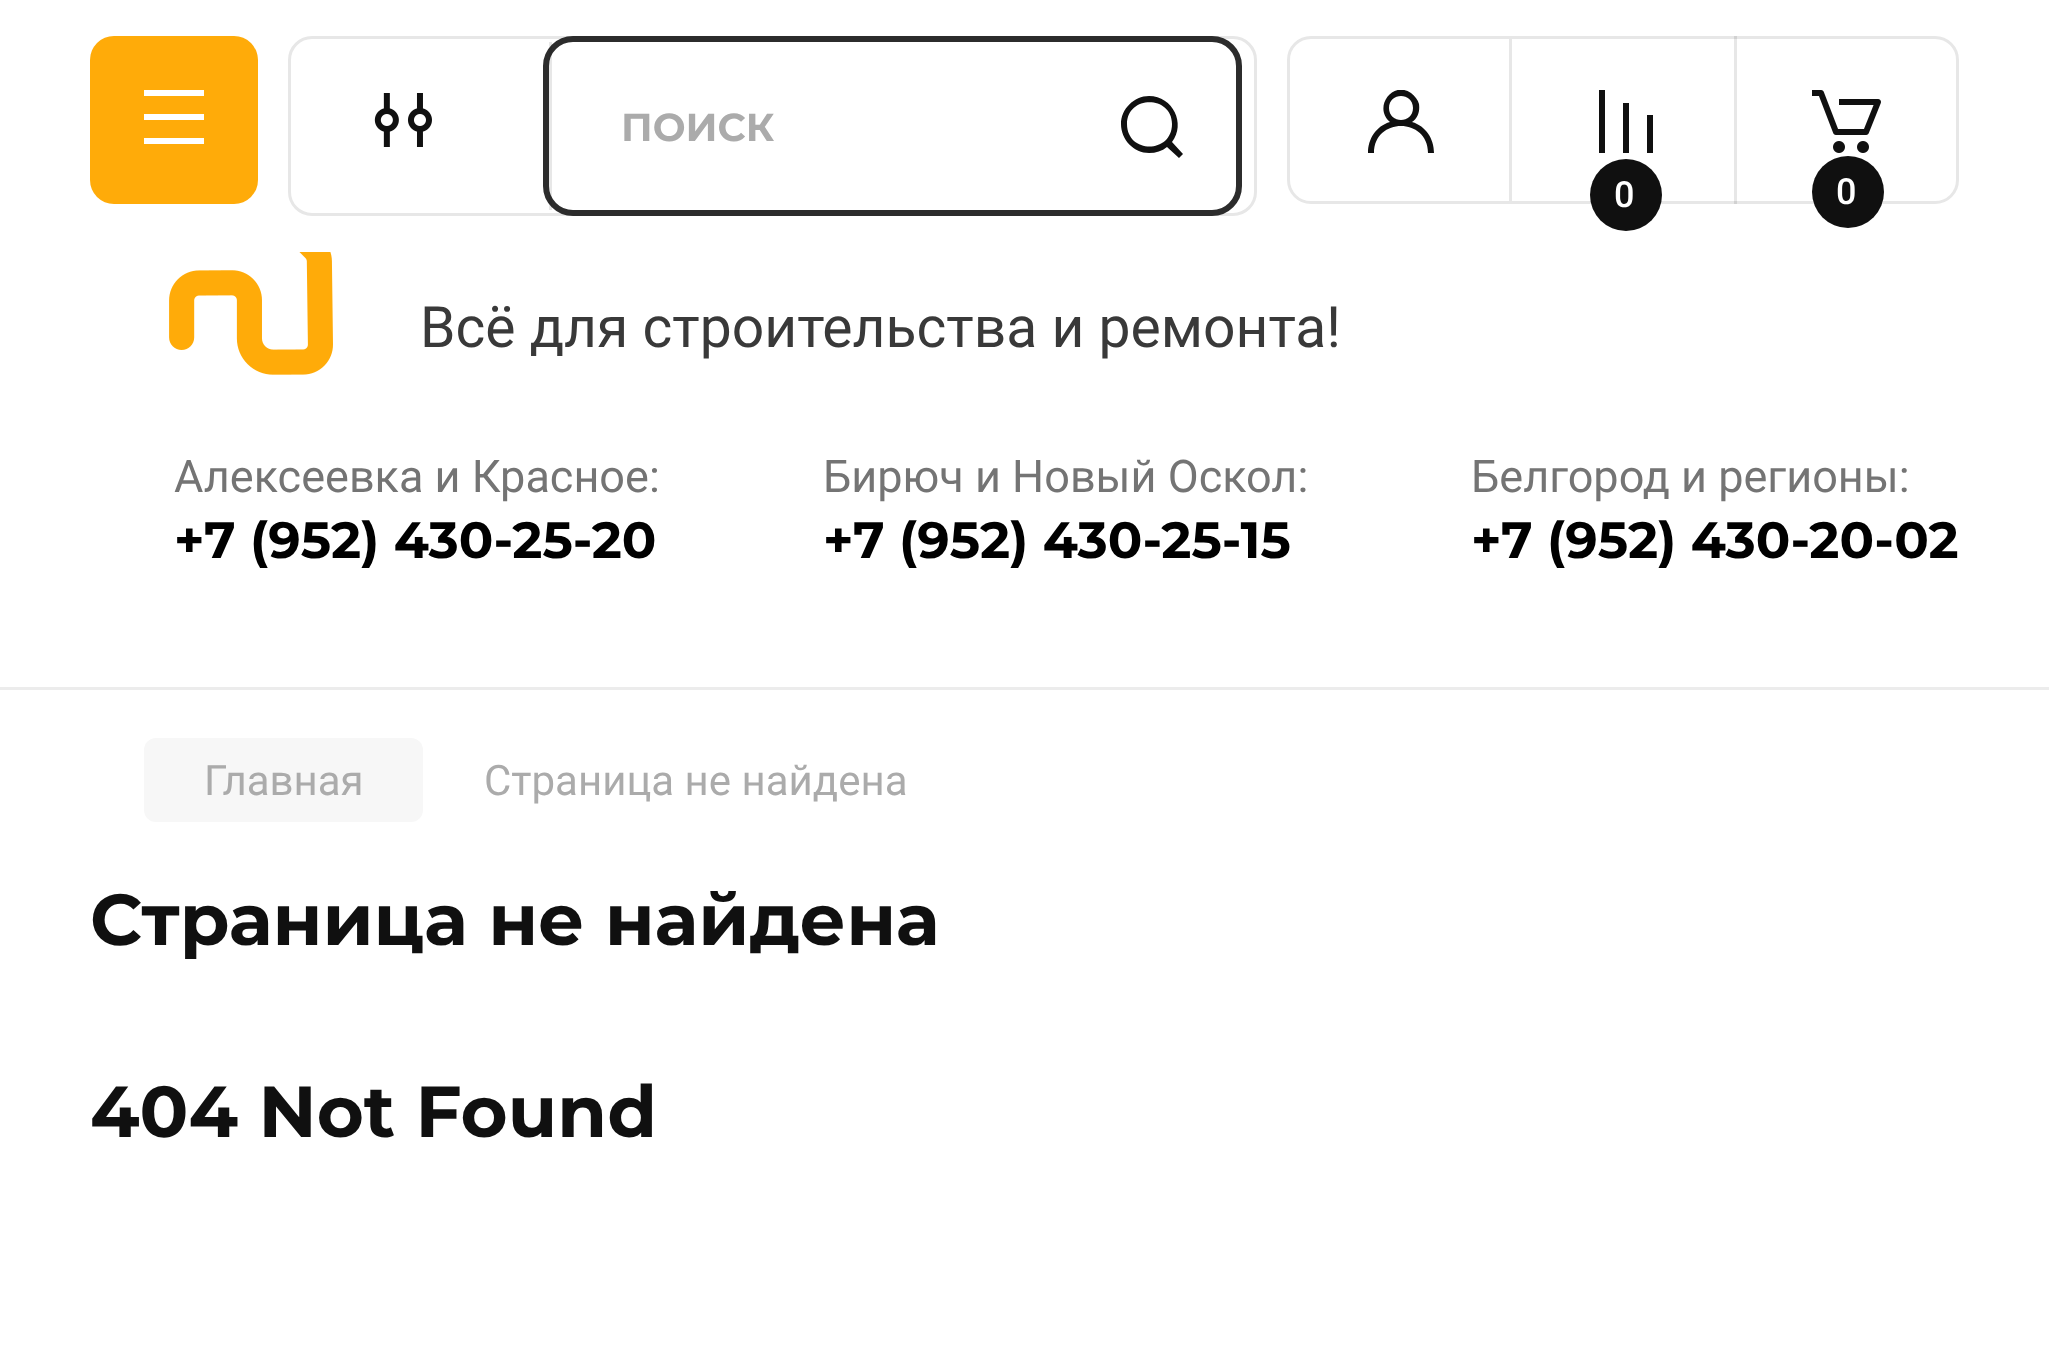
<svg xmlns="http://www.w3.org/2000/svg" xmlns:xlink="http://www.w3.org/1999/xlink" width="2049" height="1372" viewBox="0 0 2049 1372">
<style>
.cls-1{font:bold 39px Montserrat;fill:#ababab}
.cls-2{font:500 36px Roboto;fill:#ffffff}
.cls-3{font:57px Roboto;fill:#393939}
.cls-4{font:45px Roboto;fill:#747474}
.cls-5{font:bold 51px Montserrat;fill:#000000}
.cls-6{font:42px Roboto;fill:#ababab}
.cls-7{font:bold 72px Montserrat;fill:#101010}
</style>
<defs>
<clipPath id="clip1"><rect x="1368" y="90" width="66" height="63"/></clipPath>
</defs>
<rect width="100%" height="100%" fill="#ffffff"/>
<rect fill="#ffab09" x="90" y="36" width="168" height="168" rx="24"/>
<path fill="#ffffff" d="M144 90H204V96H144ZM144 114H204V120H144ZM204 138H144V144H204Z"/>
<rect fill="none" stroke="#e7e7e7" stroke-width="3" x="289.5" y="37.5" width="966" height="177" rx="22.5"/>
<image xlink:href="image0.png" x="374" y="93" width="58" height="54"/>
<rect fill="none" stroke="#2c2c2c" stroke-width="6" x="546" y="39" width="693" height="174" rx="27"/>
<rect fill="#101010" fill-opacity="0.1" x="549" y="42" width="3" height="168"/>
<path fill="#101010" d="M1149 96C1134 96 1121 109 1121 124C1121 140 1134 153 1149 153C1156 153 1162 151 1167 147L1179 158L1183 154L1172 142C1186 124 1173 96 1149 96ZM1127 124C1127 95 1172 95 1172 124C1172 154 1127 154 1127 124Z"/>
<path fill="none" stroke="#e7e7e7" stroke-width="3" d="M1311 37.5H1510.5V202.5H1311C1298.5 202.5 1288.5 192.5 1288.5 180V60C1288.5 47.5 1298.5 37.5 1311 37.5Z"/>
<g clip-path="url(#clip1)">
<path fill="#101010" fill-rule="evenodd" d="M1389 108C1389 92 1413 92 1413 108C1413 124 1389 124 1389 108ZM1412 122C1418 118 1420 111 1419 104C1418 100 1415 96 1411 93C1392 80 1373 108 1390 122C1376 126 1368 139 1368 153H1374C1374 117 1428 117 1428 153H1434C1434 139 1426 126 1412 122Z"/>
</g>
<rect fill="#e7e7e7" x="1512" y="36" width="225" height="3"/>
<rect fill="#e7e7e7" x="1512" y="201" width="225" height="3"/>
<path fill="#101010" d="M1653 153V115H1647V153ZM1629 103V153H1623V103ZM1605 90V153H1599V90Z"/>
<circle fill="#101010" cx="1626" cy="195" r="36"/>
<path fill="none" stroke="#101010" stroke-opacity="0.1" stroke-width="3" d="M1735.5 37.5H1935C1947.5 37.5 1957.5 47.5 1957.5 60V180C1957.5 192.5 1947.5 202.5 1935 202.5H1735.5Z"/>
<image xlink:href="image1.png" x="1812" y="90" width="69" height="63"/>
<circle fill="#101010" cx="1848" cy="192" r="36"/>
<rect fill="#ececec" x="0" y="687" width="2049" height="3"/>
<image xlink:href="image2.png" x="169" y="252" width="164" height="123"/>
<rect fill="#f7f7f7" x="144" y="738" width="279" height="84" rx="12"/>
<text class="cls-1" x="621" y="141">ПОИСК</text>
<text class="cls-2" x="1614" y="207">0</text>
<text class="cls-2" x="1836" y="204">0</text>
<text class="cls-3" x="420" y="347">Всё для строительства и ремонта!</text>
<text class="cls-4" x="174" y="492">Алексеевка и Красное:</text>
<text class="cls-5" x="174" y="558">+7 (952) 430-25-20</text>
<text class="cls-4" x="823" y="492">Бирюч и Новый Оскол:</text>
<text class="cls-5" x="823" y="558">+7 (952) 430-25-15</text>
<text class="cls-4" x="1471" y="492">Белгород и регионы:</text>
<text class="cls-5" x="1471" y="558">+7 (952) 430-20-02</text>
<text class="cls-6" x="204" y="795">Главная</text>
<text class="cls-6" x="484" y="795">Страница не найдена</text>
<text class="cls-7" x="90" y="945">Страница не найдена</text>
<text class="cls-7" x="90" y="1137">404 Not Found</text>
</svg>
